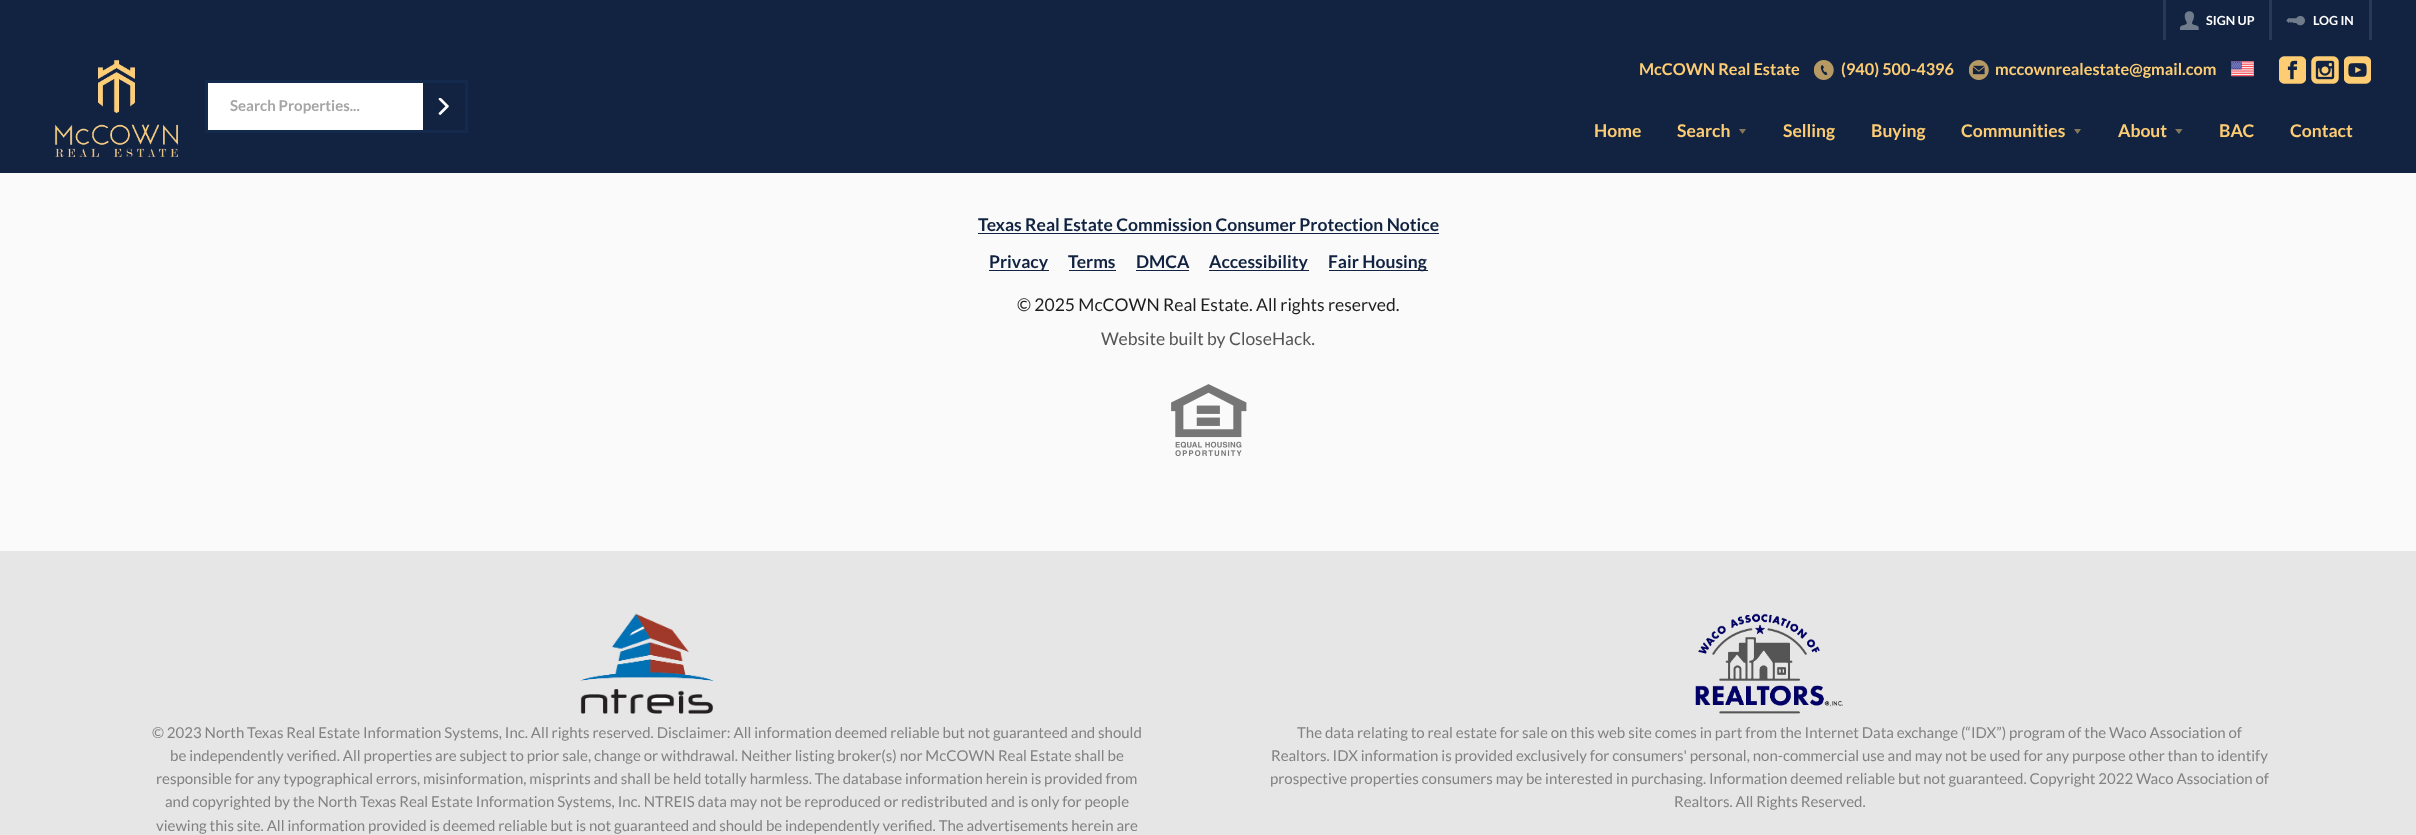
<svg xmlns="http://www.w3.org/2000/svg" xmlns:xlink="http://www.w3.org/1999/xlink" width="2416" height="835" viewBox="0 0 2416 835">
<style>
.cls-1{font:bold 12.5px Lato;fill:#ffffff}
.cls-2{font:bold 15px Lato;fill:#a5a5a5}
.cls-3{font:bold 16.25px Lato;fill:#fecd73}
.cls-4{font:bold 17.5px Lato;fill:#fecd73}
.cls-5{font:bold 17.5px Lato;fill:#112340}
.cls-6{font:17.5px Lato;fill:#1e1e1e}
.cls-7{font:17.5px Lato;fill:#555555}
.cls-8{font:15px Lato;fill:#828282}
</style>
<rect width="100%" height="100%" fill="#fafafa"/>
<rect fill="#112340" x="0" y="0" width="2416" height="173"/>
<rect fill="#293953" x="2369" y="0" width="3" height="40"/>
<rect fill="#293953" x="2163" y="0" width="3" height="40"/>
<image xlink:href="image0.png" x="2180" y="11" width="19" height="19"/>
<rect fill="#293953" x="2269" y="0" width="3" height="40"/>
<image xlink:href="image1.png" x="2286" y="16" width="19" height="10"/>
<image xlink:href="image2.png" x="54" y="59" width="124" height="98"/>
<rect fill="none" stroke="#142a4c" stroke-width="3" x="206.5" y="81.5" width="260" height="50"/>
<rect fill="#ffffff" x="208" y="83" width="215" height="47"/>
<image xlink:href="image3.png" x="438" y="98" width="11" height="17"/>
<image xlink:href="image4.png" x="1814" y="60" width="20" height="20"/>
<image xlink:href="image5.png" x="1969" y="60" width="20" height="20"/>
<image xlink:href="image6.png" x="2231" y="61" width="23" height="16"/>
<image xlink:href="image7.png" x="2279" y="56" width="27" height="28"/>
<image xlink:href="image8.png" x="2311" y="56" width="28" height="28"/>
<image xlink:href="image9.png" x="2344" y="56" width="27" height="28"/>
<path fill="#88785a" d="M1739 129H1746L1742.5 134Z"/>
<path fill="#88785a" d="M2074 129H2081L2077.5 134Z"/>
<path fill="#88785a" d="M2175 129H2182.5L2179 134Z"/>
<rect fill="#112340" x="978" y="233" width="461" height="1"/>
<rect fill="#112340" x="989" y="270" width="60" height="1"/>
<rect fill="#112340" x="1069" y="270" width="47" height="1"/>
<rect fill="#112340" x="1136" y="270" width="53" height="1"/>
<rect fill="#112340" x="1209" y="270" width="100" height="1"/>
<rect fill="#112340" x="1329" y="270" width="99" height="1"/>
<image xlink:href="image10.png" x="1171" y="384" width="76" height="72"/>
<rect fill="#e6e6e6" x="0" y="551" width="2416" height="284"/>
<image xlink:href="image11.png" x="580" y="613" width="134" height="101"/>
<image xlink:href="image12.png" x="1695" y="613" width="148" height="101"/>
<text class="cls-1" x="2206" y="25">SIGN UP</text>
<text class="cls-1" x="2313" y="25">LOG IN</text>
<text class="cls-2" x="230" y="111">Search Properties...</text>
<text class="cls-3" x="1639" y="75">McCOWN Real Estate</text>
<text class="cls-3" x="1841" y="75">(940) 500-4396</text>
<text class="cls-3" x="1995" y="75">mccownrealestate@gmail.com</text>
<text class="cls-4" x="1594" y="137">Home</text>
<text class="cls-4" x="1677" y="137">Search</text>
<text class="cls-4" x="1783" y="137">Selling</text>
<text class="cls-4" x="1871" y="137">Buying</text>
<text class="cls-4" x="1961" y="137">Communities</text>
<text class="cls-4" x="2118" y="137">About</text>
<text class="cls-4" x="2219" y="137">BAC</text>
<text class="cls-4" x="2290" y="137">Contact</text>
<text class="cls-5" x="978" y="231">Texas Real Estate Commission Consumer Protection Notice</text>
<text class="cls-5" x="989" y="268">Privacy</text>
<text class="cls-5" x="1068" y="268">Terms</text>
<text class="cls-5" x="1136" y="268">DMCA</text>
<text class="cls-5" x="1209" y="268">Accessibility</text>
<text class="cls-5" x="1328" y="268">Fair Housing</text>
<text class="cls-6" x="1017" y="311">© 2025 McCOWN Real Estate. All rights reserved.</text>
<text class="cls-7" x="1101" y="345">Website built by CloseHack.</text>
<text class="cls-8" x="152" y="738">© 2023 North Texas Real Estate Information Systems, Inc. All rights reserved. Disclaimer: All information deemed reliable but not guaranteed and should</text>
<text class="cls-8" x="170" y="761">be independently verified. All properties are subject to prior sale, change or withdrawal. Neither listing broker(s) nor McCOWN Real Estate shall be</text>
<text class="cls-8" x="156" y="784">responsible for any typographical errors, misinformation, misprints and shall be held totally harmless. The database information herein is provided from</text>
<text class="cls-8" x="165" y="807">and copyrighted by the North Texas Real Estate Information Systems, Inc. NTREIS data may not be reproduced or redistributed and is only for people</text>
<text class="cls-8" x="156" y="831">viewing this site. All information provided is deemed reliable but is not guaranteed and should be independently verified. The advertisements herein are</text>
<text class="cls-8" x="1297" y="738">The data relating to real estate for sale on this web site comes in part from the Internet Data exchange (“IDX”) program of the Waco Association of</text>
<text class="cls-8" x="1271" y="761">Realtors. IDX information is provided exclusively for consumers' personal, non-commercial use and may not be used for any purpose other than to identify</text>
<text class="cls-8" x="1270" y="784">prospective properties consumers may be interested in purchasing. Information deemed reliable but not guaranteed. Copyright 2022 Waco Association of</text>
<text class="cls-8" x="1674" y="807">Realtors. All Rights Reserved.</text>
</svg>
